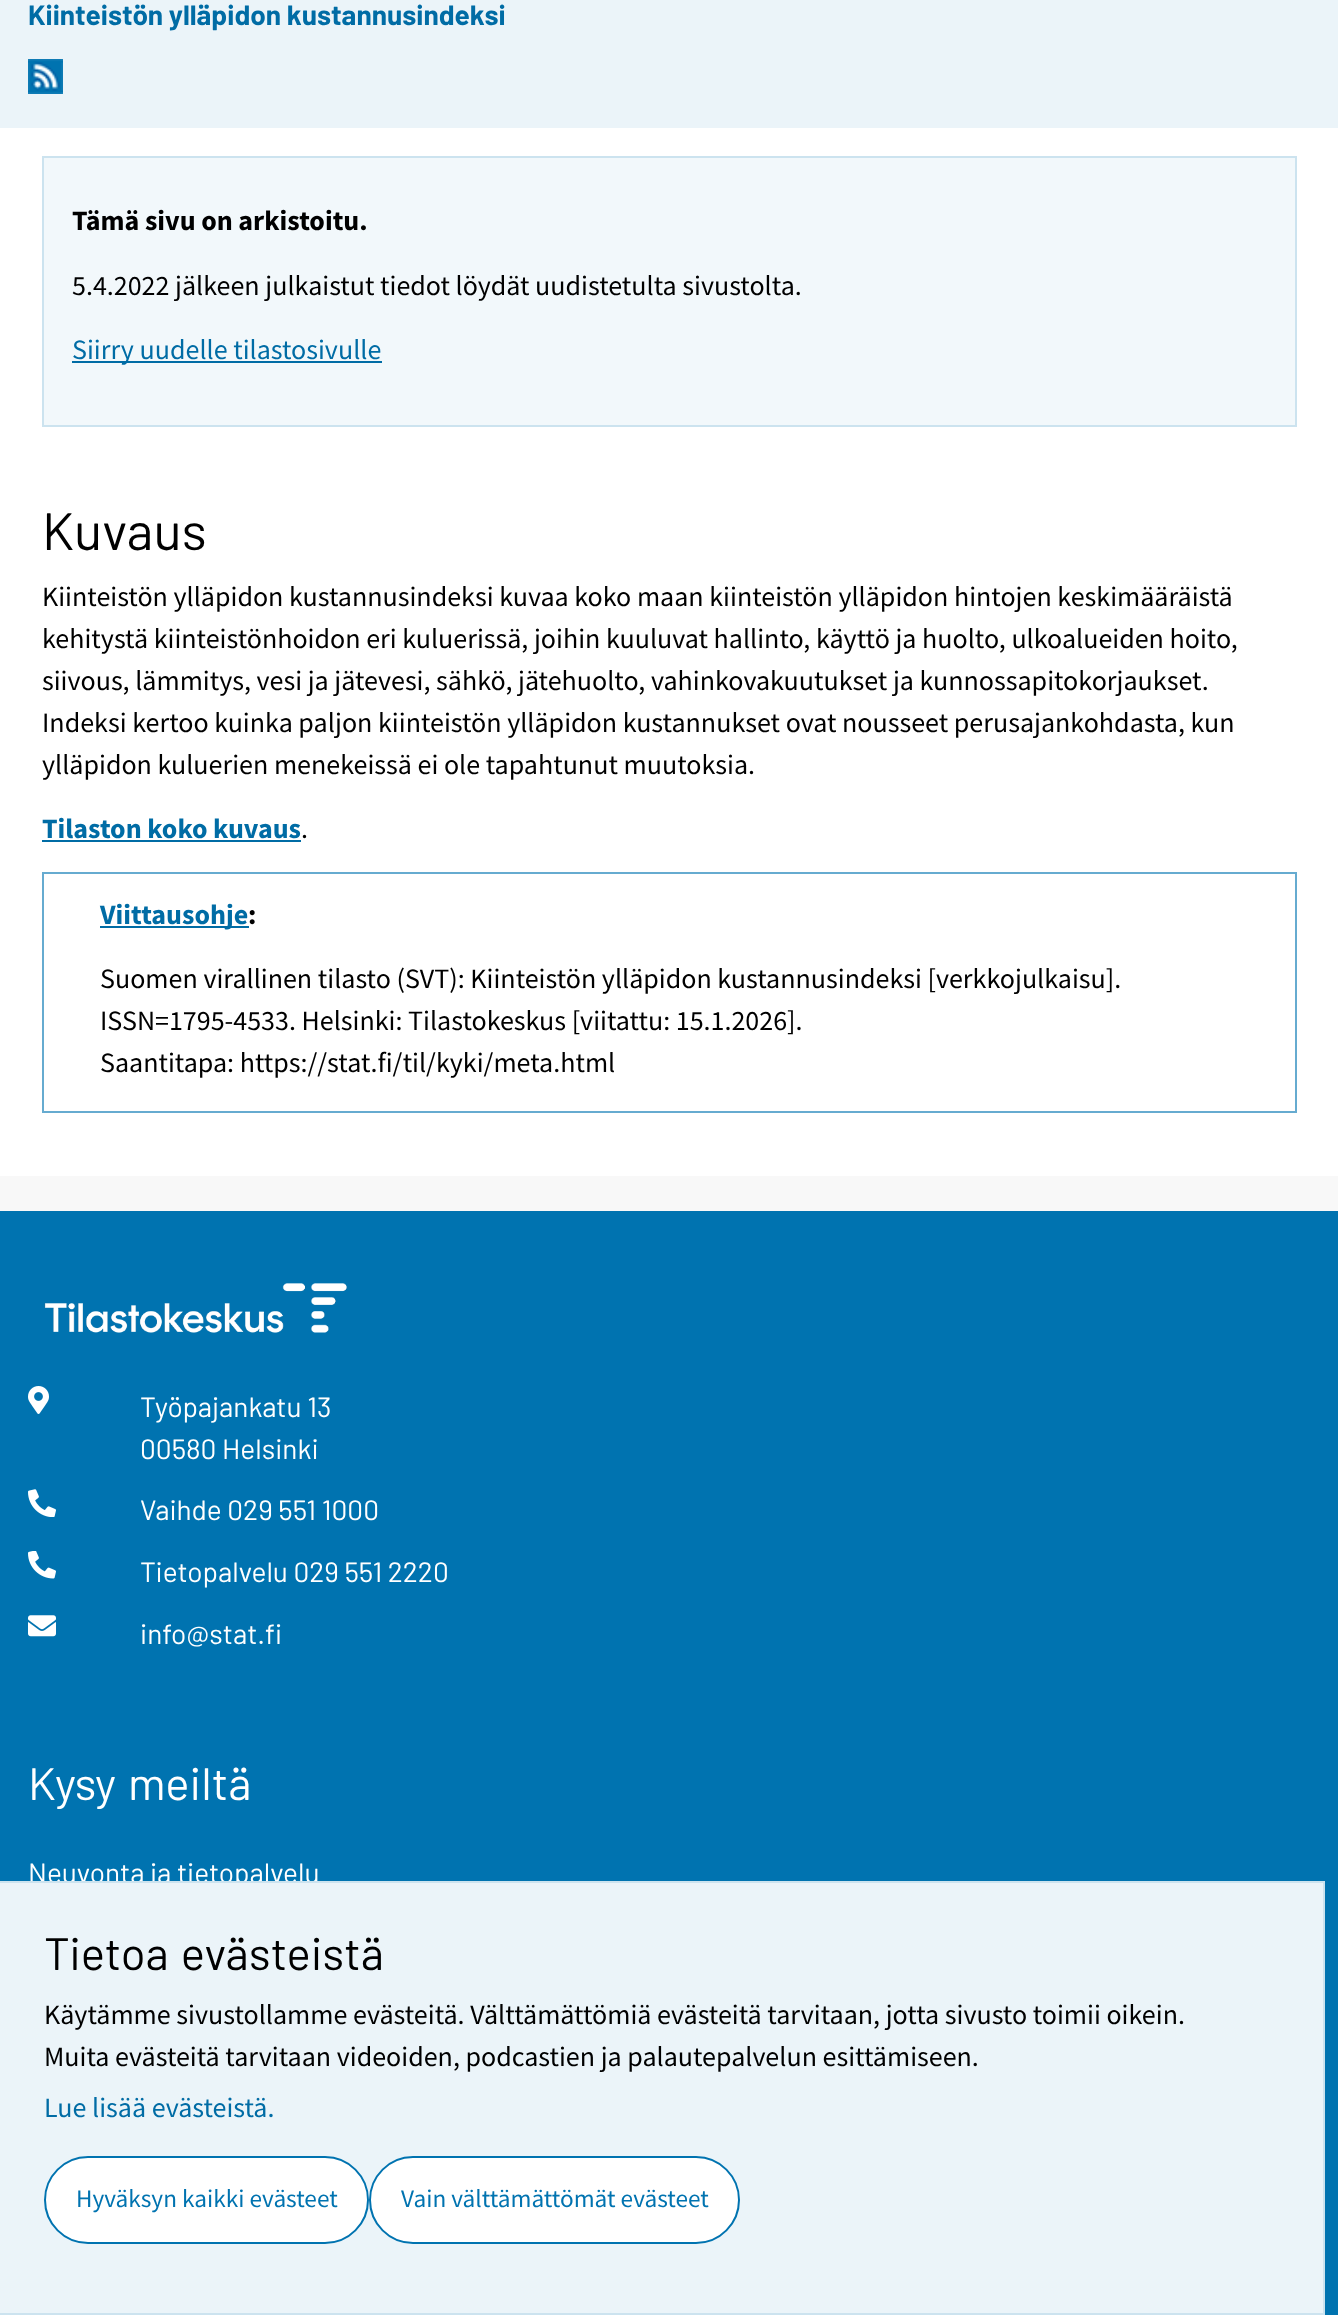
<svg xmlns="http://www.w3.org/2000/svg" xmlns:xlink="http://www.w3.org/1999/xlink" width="1338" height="2315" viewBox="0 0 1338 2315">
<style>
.cls-1{font:bold 28px Barlow;fill:#006ca5}
.cls-2{font:bold 28px Source Sans Pro;fill:#000000}
.cls-3{font:28px Source Sans Pro;fill:#000000}
.cls-4{font:28px Source Sans Pro;fill:#006ca5}
.cls-5{font:52.5px Barlow;fill:#000000}
.cls-6{font:bold 28px Source Sans Pro;fill:#006ca5}
.cls-7{font:28px Barlow;fill:#ffffff}
.cls-8{font:45.5px Barlow;fill:#ffffff}
.cls-9{font:45.5px Barlow;fill:#000000}
.cls-10{font:25.25px Source Sans Pro;fill:#0073b0}
</style>
<rect width="100%" height="100%" fill="#f8f8f8"/>
<rect fill="#ebf4f9" x="0" y="0" width="1338" height="128"/>
<image xlink:href="image0.png" x="28" y="59" width="35" height="35"/>
<rect fill="#ffffff" x="0" y="128" width="1338" height="1048"/>
<rect fill="#f2f8fb" stroke="#cce3ef" stroke-width="2" x="43" y="157" width="1253" height="269"/>
<rect fill="#006ca5" x="72" y="361" width="310" height="2"/>
<rect fill="#006ca5" x="42" y="840" width="259" height="2"/>
<rect fill="none" stroke="#66abd0" stroke-width="2" x="43" y="873" width="1253" height="239"/>
<rect fill="#006ca5" x="100" y="926" width="149" height="2"/>
<rect fill="#0073b0" x="0" y="1211" width="1338" height="1104"/>
<image xlink:href="image1.png" x="44" y="1283" width="303" height="50"/>
<image xlink:href="image2.png" x="28" y="1386" width="21" height="28"/>
<image xlink:href="image3.png" x="28" y="1489" width="28" height="28"/>
<image xlink:href="image4.png" x="28" y="1551" width="28" height="28"/>
<image xlink:href="image5.png" x="28" y="1615" width="28" height="22"/>
<text class="cls-1" x="28" y="25">Kiinteistön ylläpidon kustannusindeksi</text>
<text class="cls-2" x="72" y="230">Tämä sivu on arkistoitu.</text>
<text class="cls-3" x="72" y="295">5.4.2022 jälkeen julkaistut tiedot löydät uudistetulta sivustolta.</text>
<text class="cls-4" x="72" y="359">Siirry uudelle tilastosivulle</text>
<text class="cls-5" x="42" y="550">Kuvaus</text>
<text class="cls-3"><tspan x="42" y="606">Kiinteistön ylläpidon kustannusindeksi kuvaa koko maan kiinteistön ylläpidon hintojen keskimääräistä</tspan><tspan x="42" y="648">kehitystä kiinteistönhoidon eri kuluerissä, joihin kuuluvat hallinto, käyttö ja huolto, ulkoalueiden hoito,</tspan><tspan x="42" y="690">siivous, lämmitys, vesi ja jätevesi, sähkö, jätehuolto, vahinkovakuutukset ja kunnossapitokorjaukset.</tspan><tspan x="42" y="732">Indeksi kertoo kuinka paljon kiinteistön ylläpidon kustannukset ovat nousseet perusajankohdasta, kun</tspan><tspan x="42" y="774">ylläpidon kuluerien menekeissä ei ole tapahtunut muutoksia.</tspan></text>
<text class="cls-6" x="42" y="838">Tilaston koko kuvaus</text>
<text class="cls-3" x="301" y="838">.</text>
<text class="cls-6" x="100" y="924">Viittausohje</text>
<text class="cls-2" x="248" y="924">:</text>
<text class="cls-3"><tspan x="100" y="988">Suomen virallinen tilasto (SVT): Kiinteistön ylläpidon kustannusindeksi [verkkojulkaisu].</tspan><tspan x="100" y="1030">ISSN=1795-4533. Helsinki: Tilastokeskus [viitattu: 15.1.2026].</tspan><tspan x="100" y="1072">Saantitapa: https://stat.fi/til/kyki/meta.html</tspan></text>
<text class="cls-7"><tspan x="140" y="1417">Työpajankatu 13</tspan><tspan x="140" y="1459">00580 Helsinki</tspan></text>
<text class="cls-7" x="140" y="1520">Vaihde 029 551 1000</text>
<text class="cls-7" x="140" y="1582">Tietopalvelu 029 551 2220</text>
<text class="cls-7" x="140" y="1644">info@stat.fi</text>
<text class="cls-8" x="28" y="1800" word-spacing="3">Kysy meiltä</text>
<text class="cls-7" x="28" y="1883">Neuvonta ja tietopalvelu</text>
<rect fill="#ebf4f9" stroke="#cce3ef" stroke-width="2" x="-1" y="1882" width="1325" height="432"/>
<text class="cls-9" x="44" y="1970" word-spacing="3">Tietoa evästeistä</text>
<text class="cls-3"><tspan x="44" y="2024">Käytämme sivustollamme evästeitä. Välttämättömiä evästeitä tarvitaan, jotta sivusto toimii oikein.</tspan><tspan x="44" y="2066">Muita evästeitä tarvitaan videoiden, podcastien ja palautepalvelun esittämiseen.</tspan></text>
<text class="cls-4" x="44" y="2117">Lue lisää evästeistä.</text>
<rect fill="#ffffff" stroke="#0073b0" stroke-width="2" x="45" y="2157" width="323" height="86" rx="43"/>
<text class="cls-10" x="76" y="2207">Hyväksyn kaikki evästeet</text>
<rect fill="#ffffff" stroke="#0073b0" stroke-width="2" x="370" y="2157" width="369" height="86" rx="43"/>
<text class="cls-10" x="401" y="2207">Vain välttämättömät evästeet</text>
</svg>
